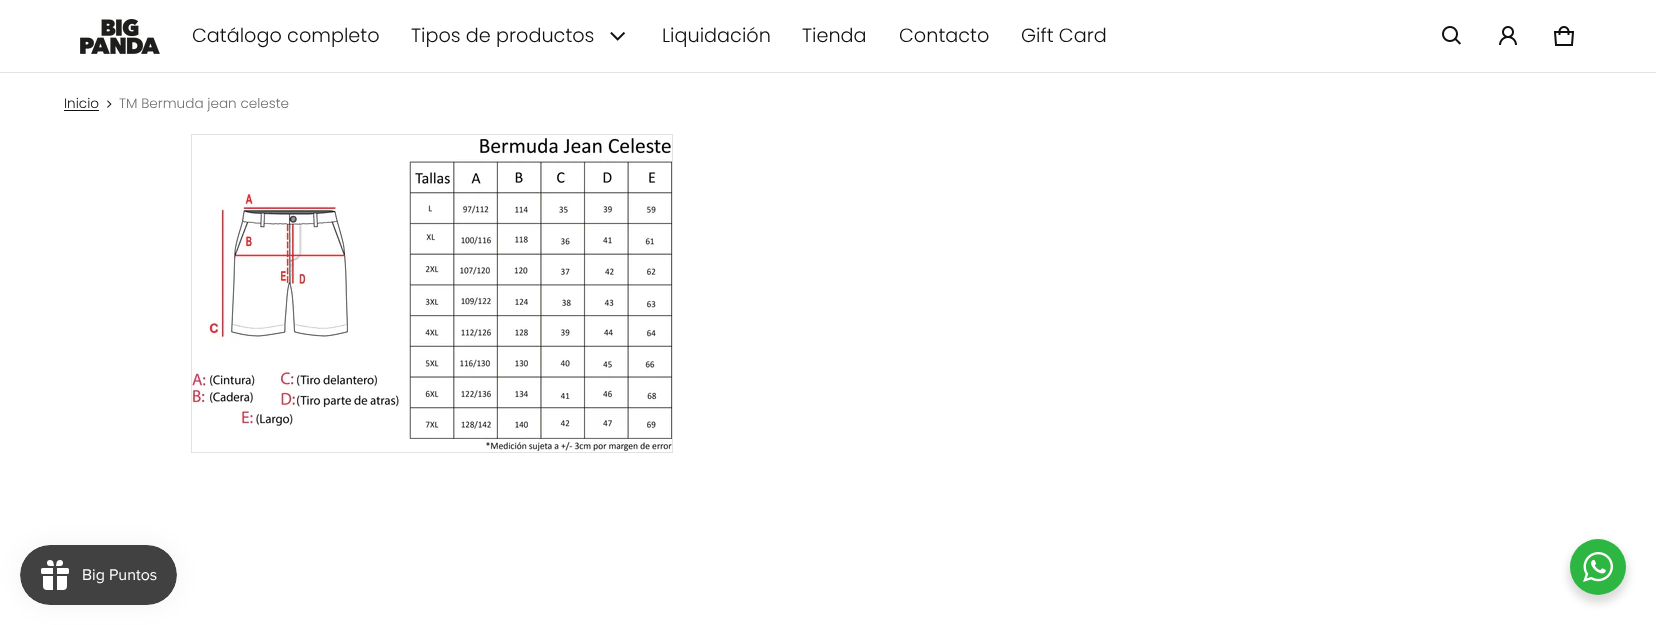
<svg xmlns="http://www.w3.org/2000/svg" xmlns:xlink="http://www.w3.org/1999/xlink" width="1656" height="625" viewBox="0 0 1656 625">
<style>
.cls-1{font:300 19.25px Poppins;fill:#101010}
.cls-2{font:300 13.6px Poppins;fill:#101010}
.cls-3{font:300 13.6px Poppins;fill:#707070}
</style>
<rect width="100%" height="100%" fill="#ffffff"/>
<rect fill="#e2e2e2" x="0" y="72" width="1656" height="1"/>
<image xlink:href="image0.png" x="80" y="19" width="80" height="35"/>
<image xlink:href="image1.png" x="610" y="32" width="15" height="9"/>
<image xlink:href="image2.png" x="1442" y="26" width="19" height="19"/>
<image xlink:href="image3.png" x="1499" y="26" width="18" height="19"/>
<image xlink:href="image4.png" x="1553" y="26" width="22" height="20"/>
<rect fill="#101010" x="64" y="110" width="35" height="1"/>
<image xlink:href="image5.png" x="107" y="100" width="5" height="8"/>
<rect fill="none" stroke="#e2e2e2" x="191.5" y="134.5" width="481" height="318"/>
<image xlink:href="image6.png" x="192" y="135" width="480" height="317"/>
<rect fill="#000000" fill-opacity="0.05" filter="blur(12.5px)" x="20" y="545" width="157" height="60" rx="30"/>
<image xlink:href="image7.png" x="20" y="545" width="157" height="60"/>
<rect fill="#000000" fill-opacity="0.14" filter="blur(4px)" x="1568" y="543" width="60" height="60" rx="30"/>
<circle fill="#2db742" cx="1598" cy="567" r="28"/>
<image xlink:href="image8.png" x="1583" y="552" width="30" height="30"/>
<text class="cls-1" x="192" y="42">Catálogo completo</text>
<text class="cls-1" x="411" y="42">Tipos de productos</text>
<text class="cls-1" x="662" y="42">Liquidación</text>
<text class="cls-1" x="802" y="42">Tienda</text>
<text class="cls-1" x="899" y="42">Contacto</text>
<text class="cls-1" x="1021" y="42">Gift Card</text>
<text class="cls-2" x="64" y="108">Inicio</text>
<text class="cls-3" x="119" y="108">TM Bermuda jean celeste</text>
</svg>
